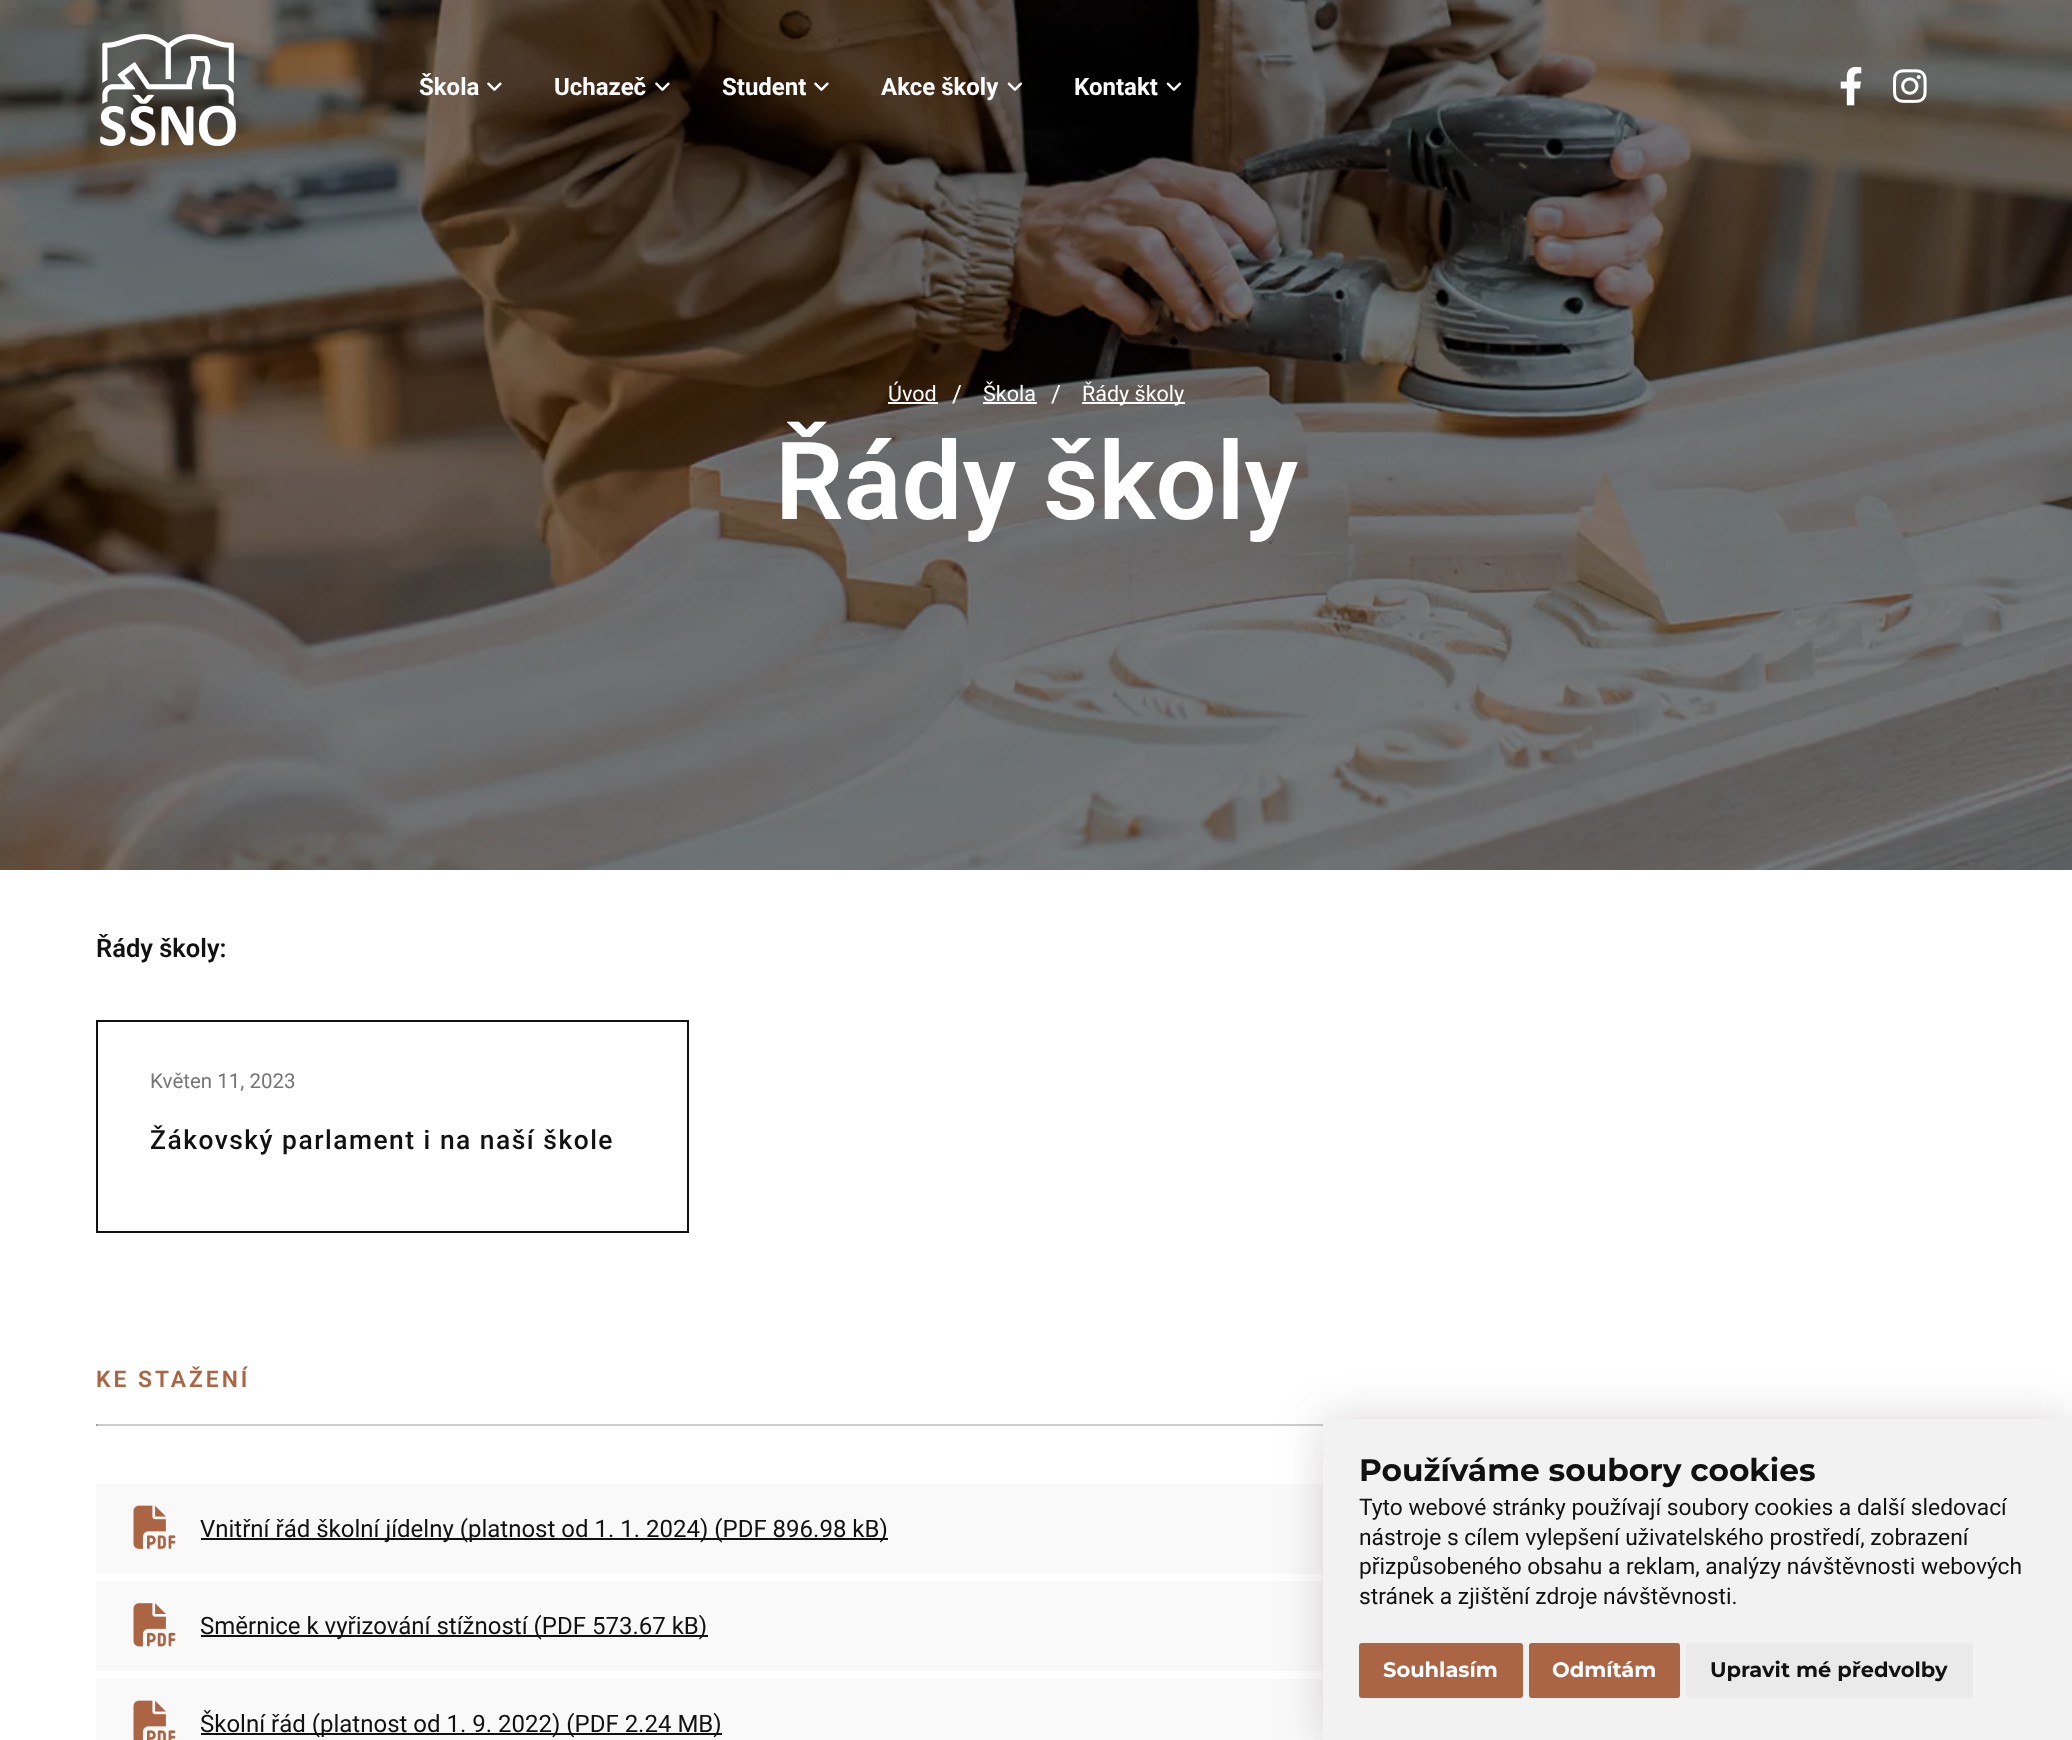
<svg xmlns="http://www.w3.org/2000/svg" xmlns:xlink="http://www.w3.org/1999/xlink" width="2072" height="1740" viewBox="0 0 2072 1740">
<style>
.cls-1{font:bold 24px Roboto;fill:#ffffff}
.cls-2{font:21.5px Roboto;fill:#ffffff}
.cls-3{font:24px Roboto;fill:#ffffff}
.cls-4{font:600 108px Roboto;fill:#ffffff}
.cls-5{font:600 25.5px Roboto;fill:#111111}
.cls-6{font:20.5px Roboto;fill:#767676}
.cls-7{font:500 26.4px Roboto;letter-spacing:1.5px;fill:#111111}
.cls-8{font:600 22.8px Roboto;letter-spacing:3px;fill:#ab6444}
.cls-9{font:24px Roboto;fill:#111111}
.cls-10{font:bold 31.25px Montserrat;fill:#111111}
.cls-11{font:22.8px Roboto;fill:#111111}
.cls-12{font:bold 21px Montserrat;fill:#ffffff}
.cls-13{font:bold 21px Montserrat;fill:#111111}
</style>
<rect width="100%" height="100%" fill="#ffffff"/>
<image xlink:href="image8.png" x="0" y="0" width="2072" height="870"/>
<image xlink:href="image0.png" x="100" y="34" width="136" height="112"/>
<image xlink:href="image1.png" x="487" y="82" width="15" height="9"/>
<image xlink:href="image2.png" x="655" y="82" width="15" height="9"/>
<image xlink:href="image3.png" x="814" y="82" width="15" height="9"/>
<image xlink:href="image4.png" x="1007" y="82" width="16" height="9"/>
<image xlink:href="image5.png" x="1166" y="82" width="16" height="9"/>
<image xlink:href="image6.png" x="1840" y="66" width="22" height="40"/>
<image xlink:href="image7.png" x="1893" y="69" width="34" height="34"/>
<rect fill="#ffffff" x="888" y="402" width="50" height="2"/>
<rect fill="#ffffff" x="983" y="402" width="54" height="2"/>
<rect fill="#ffffff" x="1082" y="402" width="103" height="2"/>
<rect fill="none" stroke="#111111" stroke-width="2" x="97" y="1021" width="591" height="211"/>
<rect fill="#cccccc" x="96" y="1424" width="1227" height="2"/>
<rect fill="#9f9f9f" x="96" y="1424" width="2" height="2"/>
<rect fill="#f9f9f9" x="96" y="1484" width="1227" height="90"/>
<image xlink:href="image9.png" x="133" y="1505" width="43" height="44"/>
<rect fill="#111111" x="201" y="1538" width="687" height="2"/>
<rect fill="#f9f9f9" x="96" y="1581" width="1227" height="90"/>
<image xlink:href="image10.png" x="133" y="1603" width="43" height="44"/>
<rect fill="#111111" x="201" y="1635" width="507" height="2"/>
<rect fill="#f9f9f9" x="96" y="1679" width="1227" height="61"/>
<image xlink:href="image11.png" x="133" y="1700" width="43" height="40"/>
<rect fill="#111111" x="201" y="1733" width="521" height="2"/>
<rect fill="#442d2d" fill-opacity="0.2" filter="blur(22.5px)" x="1323" y="1419" width="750" height="321"/>
<rect fill="#f2f2f2" x="1323" y="1419" width="749" height="321"/>
<rect fill="#ab6444" x="1359" y="1643" width="164" height="55" rx="3"/>
<rect fill="#ab6444" x="1529" y="1643" width="151" height="55" rx="3"/>
<rect fill="#eaeaea" x="1686" y="1643" width="287" height="55" rx="3"/>
<text class="cls-1" x="419" y="95">Škola</text>
<text class="cls-1" x="554" y="95">Uchazeč</text>
<text class="cls-1" x="722" y="95">Student</text>
<text class="cls-1" x="881" y="95">Akce školy</text>
<text class="cls-1" x="1074" y="95">Kontakt</text>
<text class="cls-2" x="888" y="401">Úvod</text>
<text class="cls-3" x="952" y="402">/</text>
<text class="cls-2" x="983" y="401">Škola</text>
<text class="cls-3" x="1051" y="402">/</text>
<text class="cls-2" x="1082" y="401">Řády školy</text>
<text class="cls-4" x="775" y="519">Řády školy</text>
<text class="cls-5" x="96" y="957">Řády školy:</text>
<text class="cls-6" x="150" y="1088">Květen 11, 2023</text>
<text class="cls-7" x="150" y="1149">Žákovský parlament i na naší škole</text>
<text class="cls-8" x="96" y="1387">KE STAŽENÍ</text>
<text class="cls-9" x="200" y="1537">Vnitřní řád školní jídelny (platnost od 1. 1. 2024) (PDF 896.98 kB)</text>
<text class="cls-9" x="200" y="1634">Směrnice k vyřizování stížností (PDF 573.67 kB)</text>
<text class="cls-9" x="200" y="1732">Školní řád (platnost od 1. 9. 2022) (PDF 2.24 MB)</text>
<text class="cls-10" x="1359" y="1481">Používáme soubory cookies</text>
<text class="cls-11"><tspan x="1359" y="1515">Tyto webové stránky používají soubory cookies a další sledovací</tspan><tspan x="1359" y="1545">nástroje s cílem vylepšení uživatelského prostředí, zobrazení</tspan><tspan x="1359" y="1574">přizpůsobeného obsahu a reklam, analýzy návštěvnosti webových</tspan><tspan x="1359" y="1604">stránek a zjištění zdroje návštěvnosti.</tspan></text>
<text class="cls-12" x="1383" y="1677">Souhlasím</text>
<text class="cls-12" x="1552" y="1677">Odmítám</text>
<text class="cls-13" x="1710" y="1677">Upravit mé předvolby</text>
</svg>
